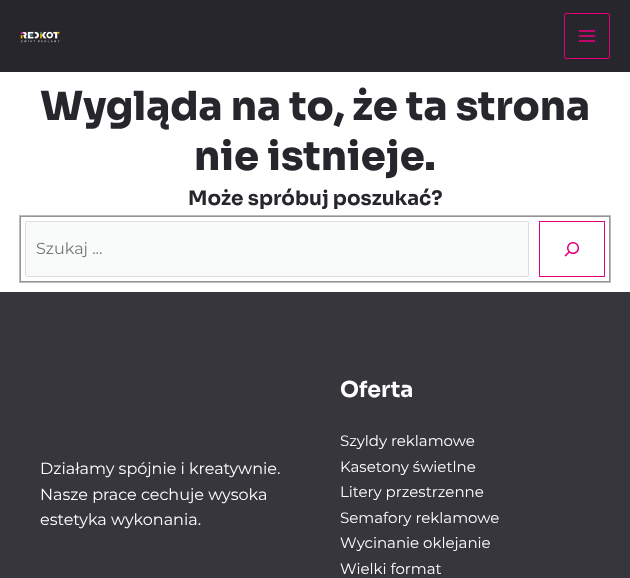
<svg xmlns="http://www.w3.org/2000/svg" xmlns:xlink="http://www.w3.org/1999/xlink" width="630" height="578" viewBox="0 0 630 578">
<style>
.cls-1{font:800 40px Sora;fill:#26262c}
.cls-2{font:bold 20px Sora;fill:#26262c}
.cls-3{font:16px Montserrat;fill:#757575}
.cls-4{font:16px Montserrat;fill:#ffffff}
.cls-5{font:bold 22px Sora;fill:#ffffff}
.cls-6{font:15px Montserrat;fill:#ffffff}
</style>
<rect width="100%" height="100%" fill="#ffffff"/>
<rect fill="#26262c" x="0" y="0" width="630" height="72"/>
<image xlink:href="image0.png" x="20" y="31" width="40" height="12"/>
<rect fill="none" stroke="#e4007d" x="564.5" y="13.5" width="45" height="45" rx="1.5"/>
<image xlink:href="image1.png" x="578" y="30" width="18" height="12"/>
<rect fill="none" stroke="#949494" x="20.5" y="216.5" width="589" height="65"/>
<rect fill="#f9fbfb" stroke="#dddddd" x="25.5" y="221.5" width="503" height="55" rx="1.5"/>
<rect fill="none" stroke="#e4007d" x="539.5" y="221.5" width="65" height="55"/>
<rect fill="#36363c" x="0" y="292" width="630" height="286"/>
<text class="cls-1" x="40" y="120">Wygląda na to, że ta strona</text>
<text class="cls-1" x="194" y="170">nie istnieje.</text>
<text class="cls-2" x="188" y="205">Może spróbuj poszukać?</text>
<text class="cls-3" x="36" y="254">Szukaj ...</text>
<path fill="none" stroke="#76787f" stroke-dasharray="1 1" d="M19.5 215.5H610.5V282.5H19.5Z"/>
<image xlink:href="image2.png" x="564" y="242" width="16" height="15"/>
<text class="cls-4"><tspan x="40" y="474">Działamy spójnie i kreatywnie.</tspan><tspan x="40" y="500">Nasze prace cechuje wysoka</tspan><tspan x="40" y="525">estetyka wykonania.</tspan></text>
<text class="cls-5" x="340" y="397">Oferta</text>
<text class="cls-6"><tspan x="340" y="446">Szyldy reklamowe</tspan><tspan x="340" y="472">Kasetony świetlne</tspan><tspan x="340" y="497">Litery przestrzenne</tspan><tspan x="340" y="523">Semafory reklamowe</tspan><tspan x="340" y="548">Wycinanie oklejanie</tspan><tspan x="340" y="574">Wielki format</tspan></text>
</svg>
